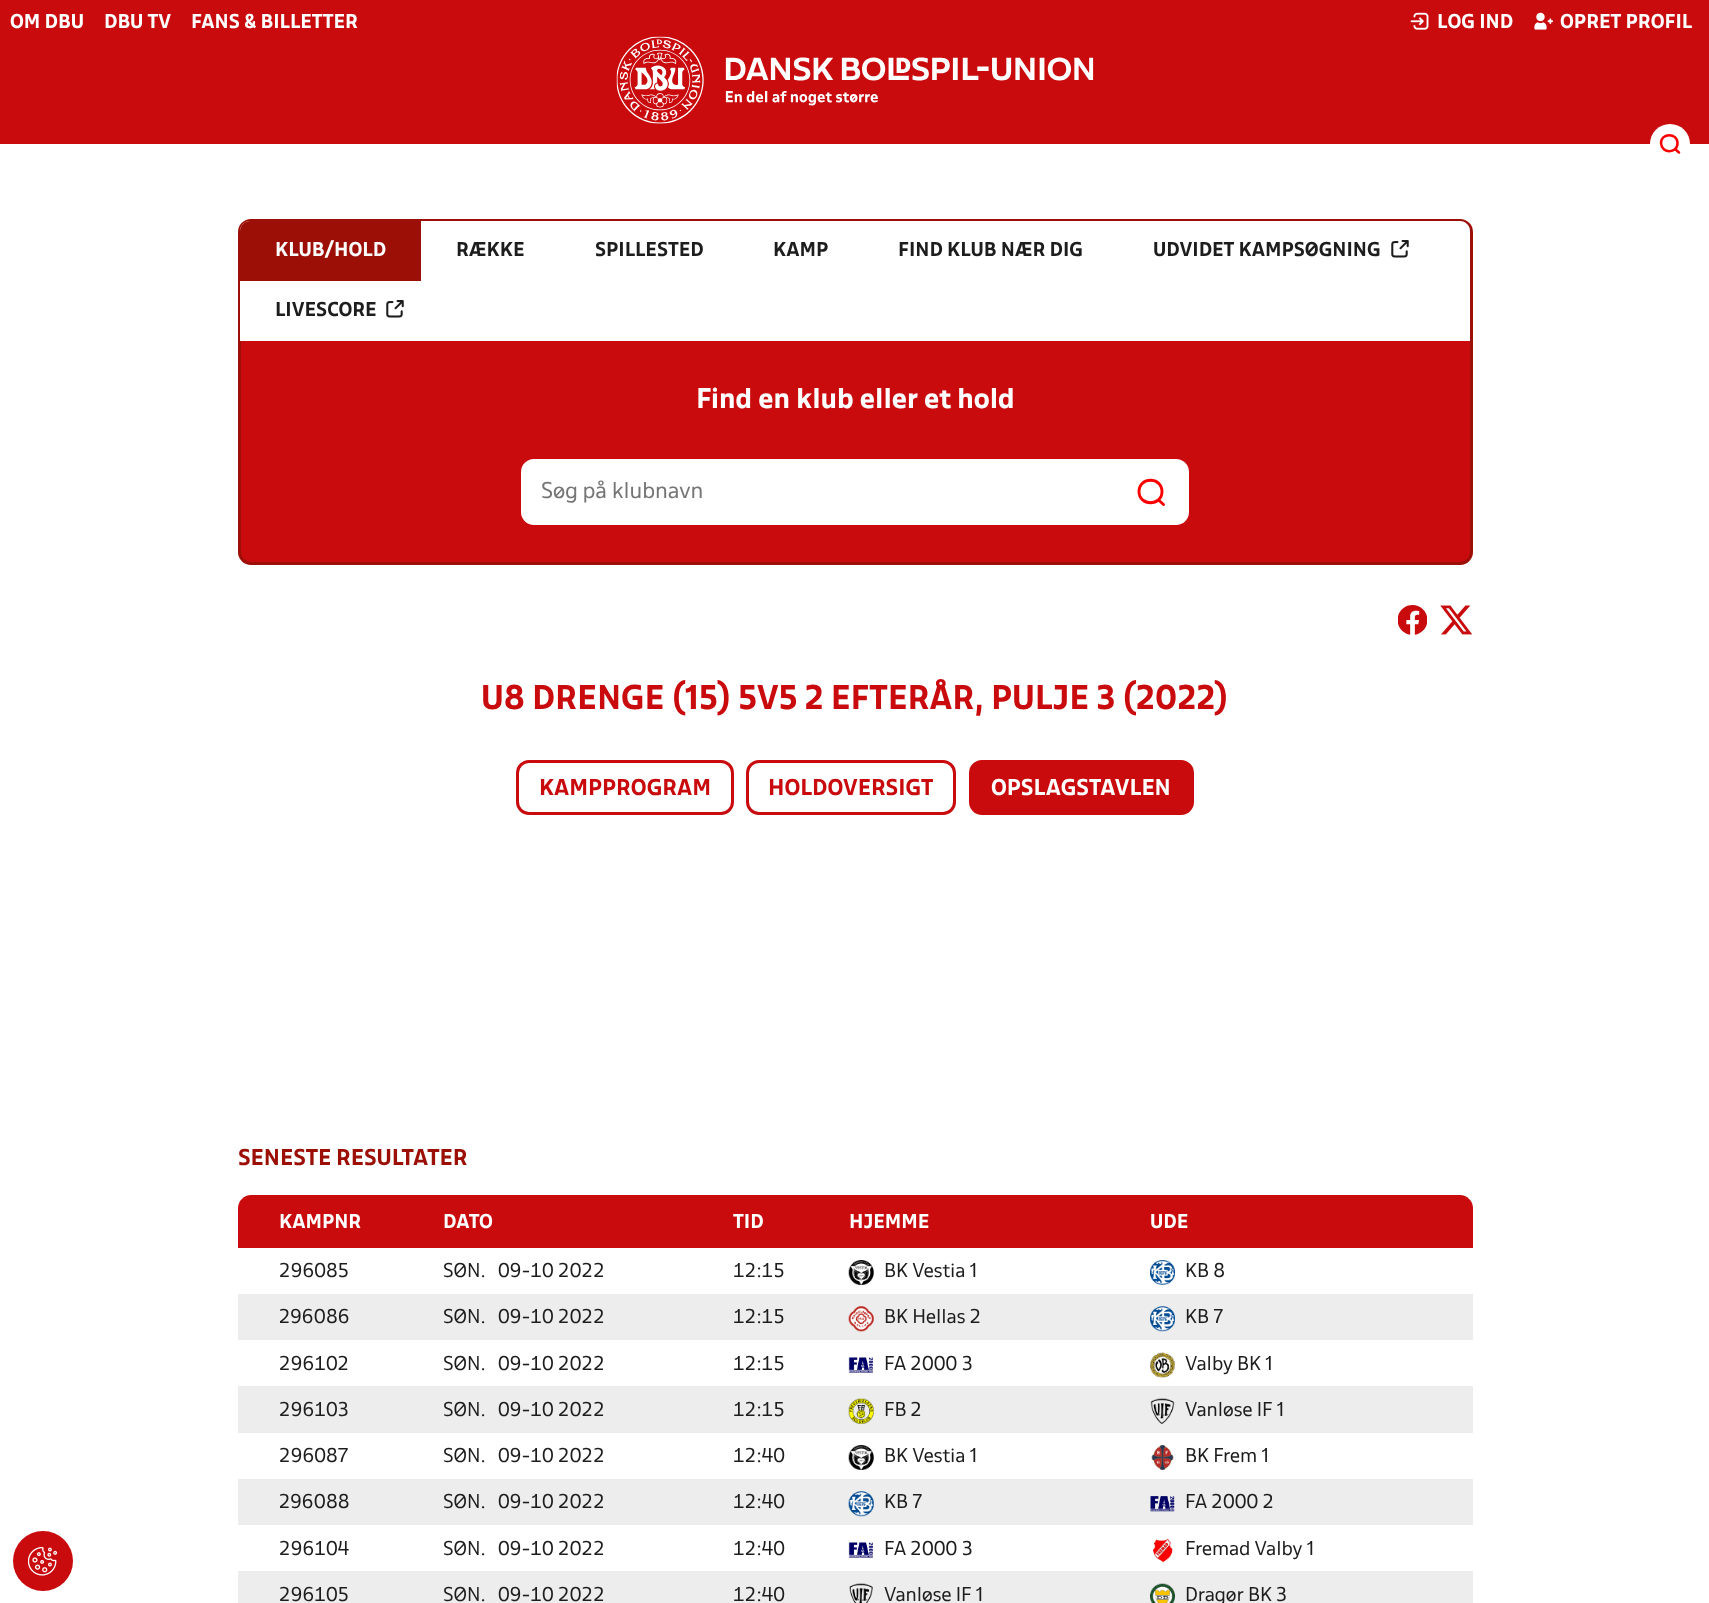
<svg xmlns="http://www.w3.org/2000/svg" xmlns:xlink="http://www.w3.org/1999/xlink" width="1709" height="1603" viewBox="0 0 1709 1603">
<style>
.cls-1{font:bold 17.5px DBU;fill:#ffffff}
.cls-2{font:bold 17.5px DBU;fill:#1d1d1d}
.cls-3{font:bold 25px DBU;fill:#ffffff}
.cls-4{font:20px DBU;fill:#757575}
.cls-5{font:bold 30px DBU;fill:#c90b0e}
.cls-6{font:bold 20px DBU;fill:#c90b0e}
.cls-7{font:bold 20px DBU;fill:#ffffff}
.cls-8{font:bold 20px DBU;fill:#9c0f06}
.cls-9{font:17.5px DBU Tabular;fill:#1d1d1d}
.cls-10{font:17.5px DBU;fill:#1d1d1d}
</style>
<rect width="100%" height="100%" fill="#ffffff"/>
<rect fill="#c90b0e" x="0" y="0" width="1709" height="144"/>
<image xlink:href="image0.png" x="1410" y="12" width="19" height="18"/>
<image xlink:href="image1.png" x="1534" y="12" width="20" height="18"/>
<image xlink:href="image2.png" x="616" y="36" width="478" height="88"/>
<circle fill="#ffffff" cx="1670" cy="144" r="20"/>
<path fill="none" stroke="#fb0000" stroke-width="2.5" stroke-linecap="round" d="M1675 149L1679 152.5M1677.5 143C1677.5 154 1661.5 154 1661 143C1661 132.5 1677.5 132.5 1677.5 143Z"/>
<circle fill="#c90b0e" cx="43" cy="1561" r="30"/>
<image xlink:href="image3.png" x="28" y="1547" width="30" height="29"/>
<rect fill="#c90b0e" stroke="#9c0f06" stroke-width="3" x="239.5" y="220.5" width="1232" height="343" rx="11.5"/>
<path fill="#ffffff" d="M250 221H1460C1465.5 221 1470 225.5 1470 231V341H240V231C240 225.5 244.5 221 250 221Z"/>
<path fill="#9c0f06" d="M250 221H421V281H240V231C240 225.5 244.5 221 250 221Z"/>
<image xlink:href="image4.png" x="1391" y="240" width="18" height="18"/>
<image xlink:href="image4.png" x="386" y="300" width="18" height="18"/>
<rect fill="#ffffff" x="521" y="459" width="668" height="66" rx="13"/>
<path fill="none" stroke="#fb0000" stroke-width="2.9" stroke-linecap="round" d="M1158.5 500L1163.5 504.5M1162 491.5C1162 506.5 1139 506.5 1139 491.5C1139 476.5 1162 476.5 1162 491.5Z"/>
<image xlink:href="image5.png" x="1398" y="605" width="29" height="30"/>
<image xlink:href="image6.png" x="1440" y="605" width="33" height="30"/>
<rect fill="none" stroke="#c90b0e" stroke-width="3" x="517.5" y="761.5" width="215" height="52" rx="11.5"/>
<rect fill="none" stroke="#c90b0e" stroke-width="3" x="747.5" y="761.5" width="207" height="52" rx="11.5"/>
<rect fill="#c90b0e" stroke="#c90b0e" stroke-width="3" x="970.5" y="761.5" width="222" height="52" rx="11.5"/>
<path fill="#c90b0e" d="M251 1195H270V1248H238V1208C238 1201 244 1195 251 1195Z"/>
<rect fill="#c90b0e" x="270" y="1195" width="1170" height="53"/>
<path fill="#c90b0e" d="M1440 1195H1460C1467 1195 1473 1201 1473 1208V1248H1440Z"/>
<image xlink:href="image7.png" x="848" y="1260" width="26" height="25"/>
<image xlink:href="image8.png" x="1150" y="1260" width="25" height="25"/>
<rect fill="#ededed" x="238" y="1294" width="1235" height="46"/>
<image xlink:href="image9.png" x="848" y="1306" width="26" height="26"/>
<image xlink:href="image10.png" x="1150" y="1306" width="25" height="26"/>
<image xlink:href="image11.png" x="848" y="1357" width="25" height="16"/>
<image xlink:href="image12.png" x="1150" y="1352" width="25" height="26"/>
<rect fill="#ededed" x="238" y="1386" width="1235" height="47"/>
<image xlink:href="image13.png" x="848" y="1398" width="26" height="26"/>
<image xlink:href="image14.png" x="1150" y="1398" width="25" height="26"/>
<image xlink:href="image15.png" x="848" y="1445" width="26" height="25"/>
<image xlink:href="image16.png" x="1151" y="1445" width="23" height="25"/>
<rect fill="#ededed" x="238" y="1479" width="1235" height="46"/>
<image xlink:href="image17.png" x="848" y="1491" width="26" height="26"/>
<image xlink:href="image18.png" x="1150" y="1496" width="25" height="16"/>
<image xlink:href="image11.png" x="848" y="1542" width="25" height="16"/>
<image xlink:href="image19.png" x="1153" y="1538" width="20" height="25"/>
<rect fill="#ededed" x="238" y="1571" width="1235" height="32"/>
<image xlink:href="image20.png" x="849" y="1583" width="24" height="20"/>
<image xlink:href="image21.png" x="1150" y="1583" width="25" height="20"/>
<text class="cls-1" x="10" y="28">OM DBU</text>
<text class="cls-1" x="104" y="28">DBU TV</text>
<text class="cls-1" x="191" y="28">FANS &amp; BILLETTER</text>
<text class="cls-1" x="1437" y="28">LOG IND</text>
<text class="cls-1" x="1560" y="28">OPRET PROFIL</text>
<text class="cls-1" x="275" y="256">KLUB/HOLD</text>
<text class="cls-2" x="456" y="256">RÆKKE</text>
<text class="cls-2" x="595" y="256">SPILLESTED</text>
<text class="cls-2" x="773" y="256">KAMP</text>
<text class="cls-2" x="898" y="256">FIND KLUB NÆR DIG</text>
<text class="cls-2" x="1153" y="256">UDVIDET KAMPSØGNING</text>
<text class="cls-2" x="275" y="316">LIVESCORE</text>
<text class="cls-3" x="696" y="408">Find en klub eller et hold</text>
<text class="cls-4" x="541" y="498">Søg på klubnavn</text>
<text class="cls-5" x="481" y="709">U8 DRENGE (15) 5V5 2 EFTERÅR, PULJE 3 (2022)</text>
<text class="cls-6" x="539" y="795">KAMPPROGRAM</text>
<text class="cls-6" x="768" y="795">HOLDOVERSIGT</text>
<text class="cls-7" x="991" y="795">OPSLAGSTAVLEN</text>
<text class="cls-8" x="238" y="1165">SENESTE RESULTATER</text>
<text class="cls-1" x="279" y="1228">KAMPNR</text>
<text class="cls-1" x="443" y="1228">DATO</text>
<text class="cls-1" x="733" y="1228">TID</text>
<text class="cls-1" x="849" y="1228">HJEMME</text>
<text class="cls-1" x="1150" y="1228">UDE</text>
<text class="cls-9" x="279" y="1277">296085</text>
<text class="cls-10" x="443" y="1277">SØN.</text>
<text class="cls-9" x="498" y="1277">09-10 2022</text>
<text class="cls-9" x="733" y="1277">12:15</text>
<text class="cls-10" x="884" y="1277">BK Vestia 1</text>
<text class="cls-10" x="1185" y="1277">KB 8</text>
<text class="cls-10" x="279" y="1323">296086</text>
<text class="cls-10" x="443" y="1323">SØN.</text>
<text class="cls-9" x="498" y="1323">09-10 2022</text>
<text class="cls-9" x="733" y="1323">12:15</text>
<text class="cls-10" x="884" y="1323">BK Hellas 2</text>
<text class="cls-10" x="1185" y="1323">KB 7</text>
<text class="cls-9" x="279" y="1370">296102</text>
<text class="cls-10" x="443" y="1370">SØN.</text>
<text class="cls-9" x="498" y="1370">09-10 2022</text>
<text class="cls-9" x="733" y="1370">12:15</text>
<text class="cls-9" x="884" y="1370">FA 2000 3</text>
<text class="cls-10" x="1185" y="1370">Valby BK 1</text>
<text class="cls-9" x="279" y="1416">296103</text>
<text class="cls-10" x="443" y="1416">SØN.</text>
<text class="cls-9" x="498" y="1416">09-10 2022</text>
<text class="cls-9" x="733" y="1416">12:15</text>
<text class="cls-10" x="884" y="1416">FB 2</text>
<text class="cls-10" x="1185" y="1416">Vanløse IF 1</text>
<text class="cls-9" x="279" y="1462">296087</text>
<text class="cls-10" x="443" y="1462">SØN.</text>
<text class="cls-9" x="498" y="1462">09-10 2022</text>
<text class="cls-9" x="733" y="1462">12:40</text>
<text class="cls-10" x="884" y="1462">BK Vestia 1</text>
<text class="cls-10" x="1185" y="1462">BK Frem 1</text>
<text class="cls-10" x="279" y="1508">296088</text>
<text class="cls-10" x="443" y="1508">SØN.</text>
<text class="cls-9" x="498" y="1508">09-10 2022</text>
<text class="cls-9" x="733" y="1508">12:40</text>
<text class="cls-10" x="884" y="1508">KB 7</text>
<text class="cls-9" x="1185" y="1508">FA 2000 2</text>
<text class="cls-9" x="279" y="1555">296104</text>
<text class="cls-10" x="443" y="1555">SØN.</text>
<text class="cls-9" x="498" y="1555">09-10 2022</text>
<text class="cls-9" x="733" y="1555">12:40</text>
<text class="cls-9" x="884" y="1555">FA 2000 3</text>
<text class="cls-10" x="1185" y="1555">Fremad Valby 1</text>
<text class="cls-9" x="279" y="1601">296105</text>
<text class="cls-10" x="443" y="1601">SØN.</text>
<text class="cls-9" x="498" y="1601">09-10 2022</text>
<text class="cls-9" x="733" y="1601">12:40</text>
<text class="cls-10" x="884" y="1601">Vanløse IF 1</text>
<text class="cls-10" x="1185" y="1601">Dragør BK 3</text>
</svg>
